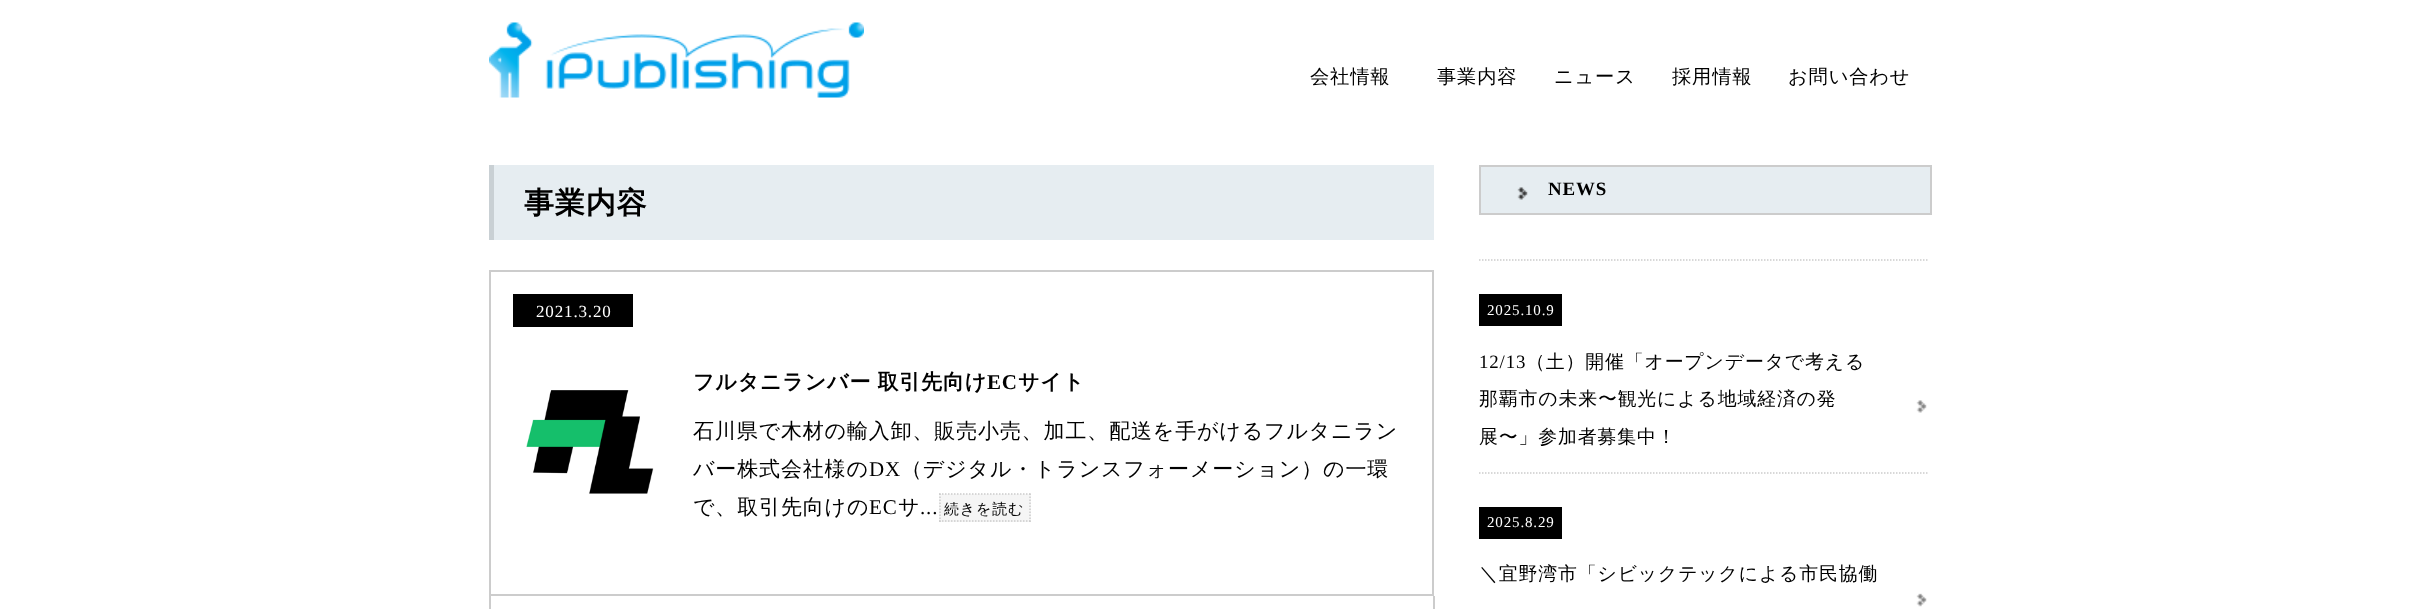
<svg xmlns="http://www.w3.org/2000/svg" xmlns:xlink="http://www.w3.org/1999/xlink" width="2417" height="609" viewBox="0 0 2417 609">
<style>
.cls-1{font:500 19.25px WenQuanYi Zen Hei;letter-spacing:0.85px;fill:#000000}
.cls-2{font:bold 30px WenQuanYi Zen Hei;letter-spacing:0.85px;fill:#000000}
.cls-3{font:17px Liberation Serif;letter-spacing:0.85px;fill:#ffffff}
.cls-4{font:bold 21px WenQuanYi Zen Hei;letter-spacing:0.85px;fill:#000000}
.cls-5{font:bold 21px Liberation Serif;letter-spacing:0.85px;fill:#000000}
.cls-6{font:500 21px WenQuanYi Zen Hei;letter-spacing:0.85px;fill:#000000}
.cls-7{font:21px Liberation Serif;letter-spacing:0.85px;fill:#000000}
.cls-8{font:500 15px WenQuanYi Zen Hei;letter-spacing:0.85px;fill:#000000}
.cls-9{font:bold 18.9px Liberation Serif;letter-spacing:0.85px;fill:#000000}
.cls-10{font:15px Liberation Serif;letter-spacing:0.85px;fill:#ffffff}
.cls-11{font:18.9px Liberation Serif;letter-spacing:0.85px;fill:#000000}
.cls-12{font:500 18.9px WenQuanYi Zen Hei;letter-spacing:0.85px;fill:#000000}
</style>
<rect width="100%" height="100%" fill="#ffffff"/>
<image xlink:href="image0.png" x="489" y="22" width="375" height="76"/>
<rect fill="#e6edf1" x="494" y="165" width="940" height="75"/>
<rect fill="#c9d0d4" x="489" y="165" width="5" height="75"/>
<rect fill="none" stroke="#cccccc" stroke-width="2" x="490" y="271" width="943" height="324"/>
<rect fill="#000000" x="513" y="294" width="120" height="33"/>
<image xlink:href="image1.png" x="526" y="390" width="128" height="104"/>
<rect fill="#f5f5f5" x="939" y="494" width="92" height="28"/>
<path fill="none" stroke="#cccccc" stroke-width="1.5" stroke-dasharray="1.5 1.5" d="M939 494H1030.5"/>
<path fill="none" stroke="#cccccc" stroke-width="1.5" stroke-dasharray="1.5 1.5" d="M1030 493.5V522"/>
<path fill="none" stroke="#cccccc" stroke-width="1.5" stroke-dasharray="1.5 1.5" d="M939 521H1030.5"/>
<path fill="none" stroke="#cccccc" stroke-width="1.5" stroke-dasharray="1.5 1.5" d="M940 493.5V522"/>
<rect fill="#cccccc" x="1433" y="596" width="2" height="13"/>
<rect fill="#cccccc" x="489" y="596" width="2" height="13"/>
<rect fill="#e6edf1" x="1481" y="167" width="449" height="46"/>
<image xlink:href="image2.png" x="1517" y="187" width="11" height="13"/>
<rect fill="none" stroke="#cccccc" stroke-width="2" x="1480" y="166" width="451" height="48"/>
<path fill="none" stroke="#cccccc" stroke-width="1.5" stroke-dasharray="1.5 1.5" d="M1479 260H1929"/>
<rect fill="#000000" x="1479" y="294" width="83" height="32"/>
<image xlink:href="image3.png" x="1916" y="400" width="11" height="13"/>
<path fill="none" stroke="#cccccc" stroke-width="1.5" stroke-dasharray="1.5 1.5" d="M1479 473H1929"/>
<rect fill="#000000" x="1479" y="507" width="83" height="32"/>
<image xlink:href="image4.png" x="1916" y="593" width="11" height="14"/>
<text class="cls-1" x="1310" y="83">会社情報</text>
<text class="cls-1" x="1437" y="83">事業内容</text>
<text class="cls-1" x="1554" y="83">ニュース</text>
<text class="cls-1" x="1672" y="83">採用情報</text>
<text class="cls-1" x="1788" y="83">お問い合わせ</text>
<text class="cls-2" x="524" y="213">事業内容</text>
<text class="cls-3" x="536" y="317">2021.3.20</text>
<text class="cls-4" x="693" y="389" word-spacing="-1">フルタニランバー 取引先向け</text>
<text class="cls-5" x="987" y="389">EC</text>
<text class="cls-4" x="1018" y="389">サイト</text>
<text class="cls-6"><tspan x="693" y="438">石川県で木材の輸入卸、販売小売、加工、配送を手がけるフルタニラン</tspan><tspan x="693" y="476">バー株式会社様の</tspan></text>
<text class="cls-7" x="869" y="476">DX</text>
<text class="cls-6" x="901" y="476">（デジタル・トランスフォーメーション）の一環</text>
<text class="cls-6" x="693" y="514">で、取引先向けの</text>
<text class="cls-7" x="869" y="514">EC</text>
<text class="cls-6" x="898" y="514">サ</text>
<text class="cls-7" x="920" y="514">...</text>
<text class="cls-8" x="944" y="514">続きを読む</text>
<text class="cls-9" x="1548" y="195">NEWS</text>
<text class="cls-10" x="1487" y="315">2025.10.9</text>
<text class="cls-11" x="1479" y="368">12/13</text>
<text class="cls-12" x="1526" y="368">（土）開催「オープンデータで考える</text>
<text class="cls-12" x="1479" y="405">那覇市の未来〜観光による地域経済の発</text>
<text class="cls-12" x="1479" y="443">展〜」参加者募集中！</text>
<text class="cls-10" x="1487" y="527">2025.8.29</text>
<text class="cls-12" x="1479" y="580">＼宜野湾市「シビックテックによる市民協働</text>
</svg>
